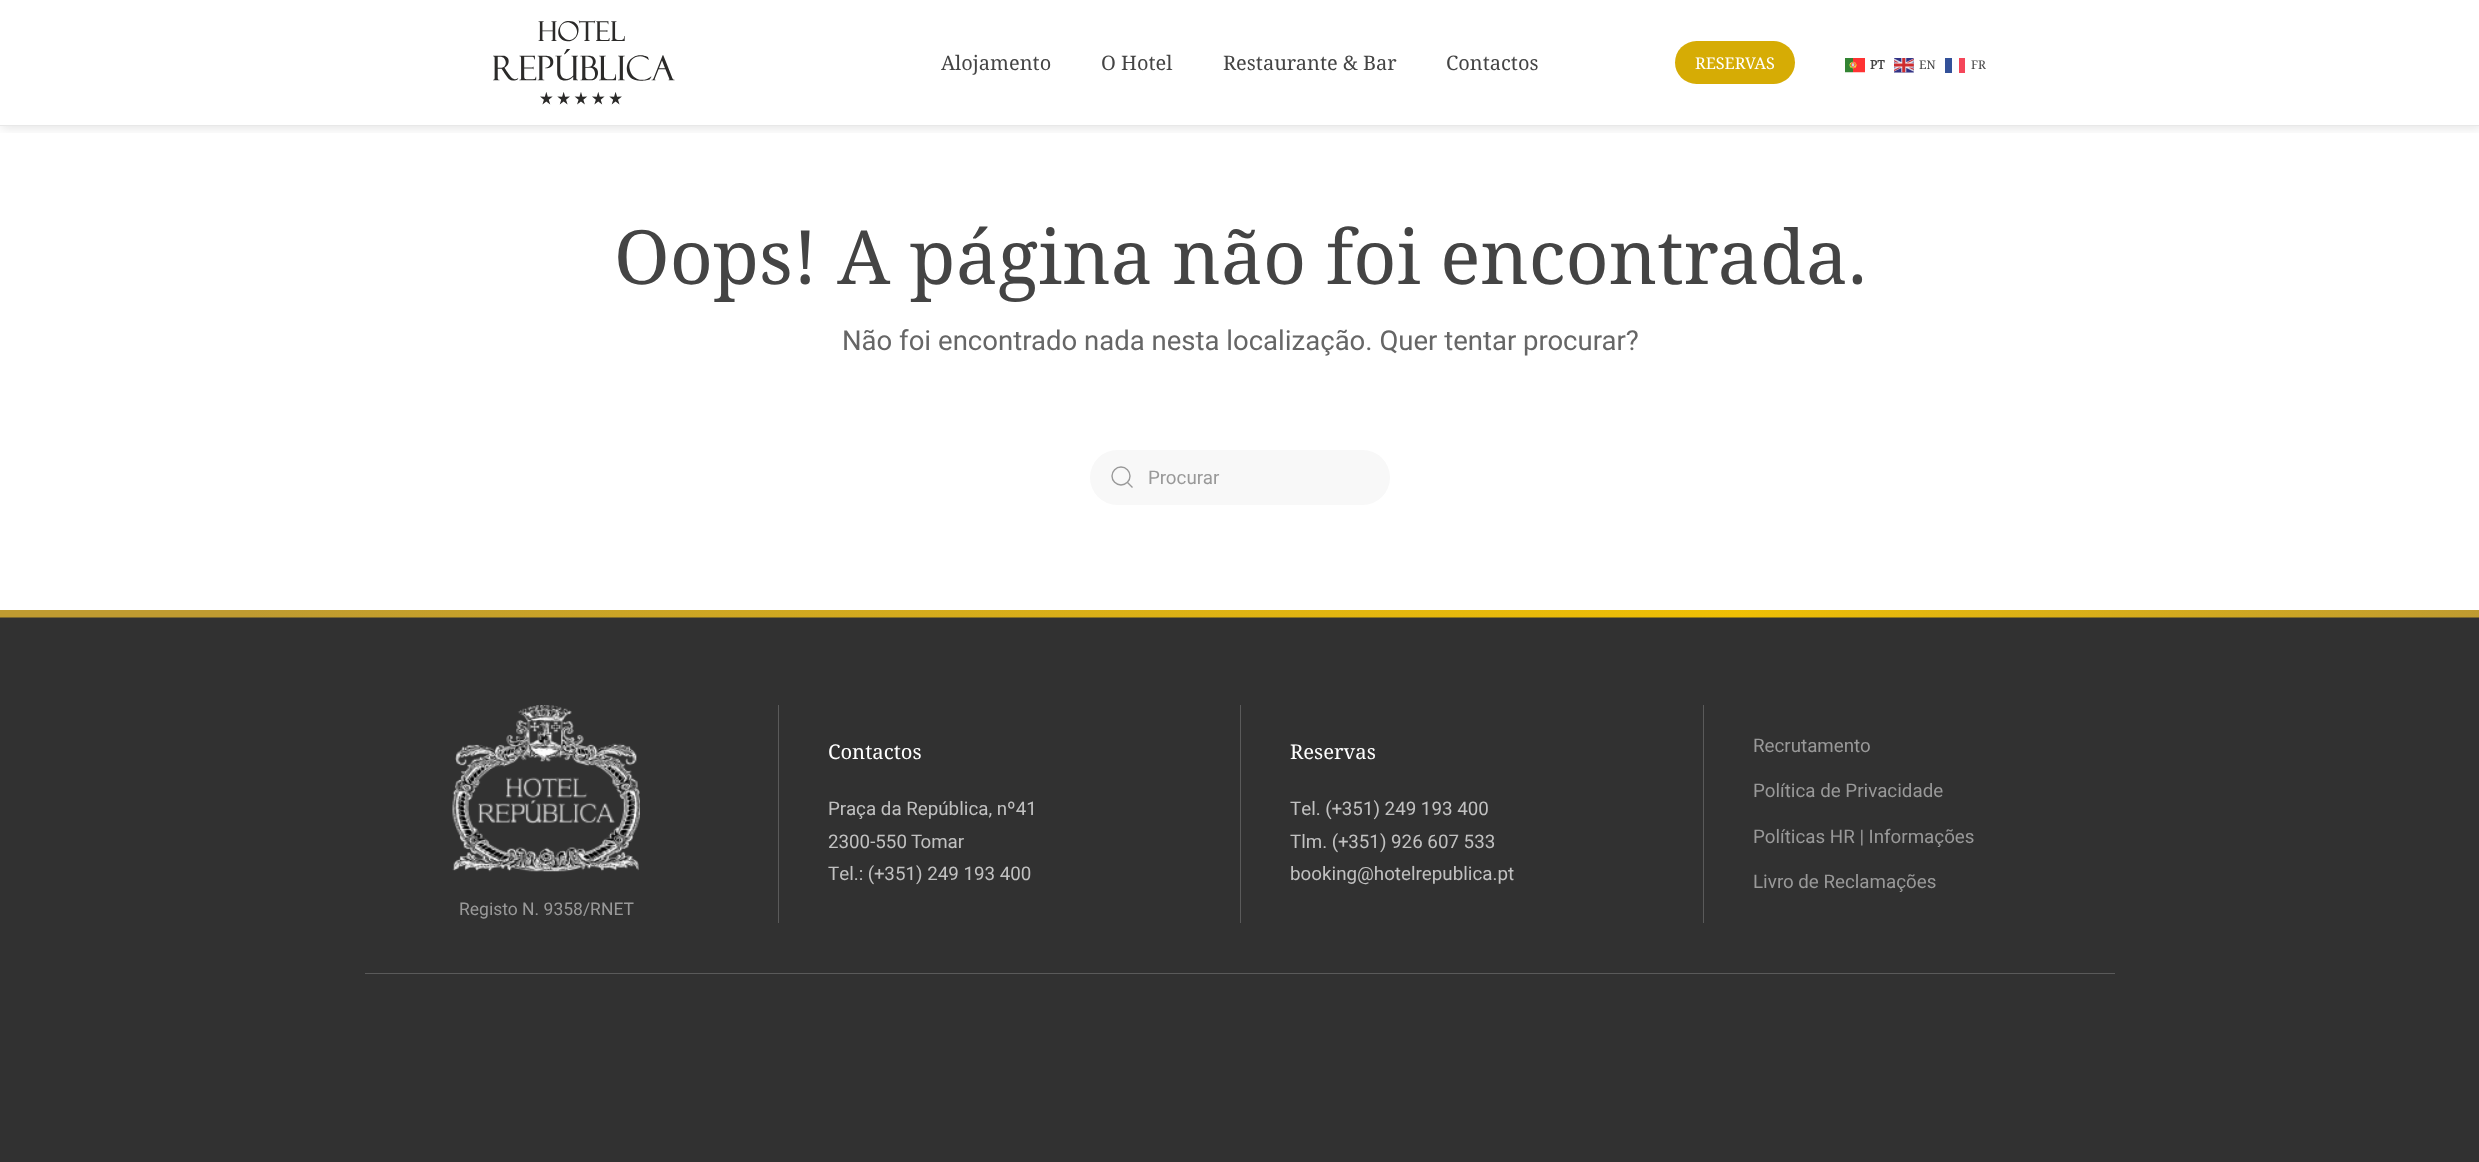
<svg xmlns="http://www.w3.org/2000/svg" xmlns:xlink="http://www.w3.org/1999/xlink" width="2479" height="1162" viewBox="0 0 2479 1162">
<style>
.cls-1{font:20px Noto Serif;fill:#444444}
.cls-2{font:16.25px Noto Serif;fill:#ffffff}
.cls-3{font:bold 12px Noto Serif;fill:#444444}
.cls-4{font:12px Noto Serif;fill:#444444}
.cls-5{font:75px Noto Serif;fill:#444444}
.cls-6{font:27.5px Heebo;fill:#666666}
.cls-7{font:18.75px Heebo;fill:#999999}
.cls-8{font:20.25px Noto Serif;fill:#ffffff}
.cls-9{font:18.75px Heebo;fill:#c1c1c1}
.cls-10{font:17.5px Heebo;fill:#999999}
</style>
<defs>
<clipPath id="clip1"><rect x="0" y="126" width="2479" height="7"/></clipPath>
</defs>
<rect width="100%" height="100%" fill="#ffffff"/>
<g clip-path="url(#clip1)">
<rect fill="#000000" fill-opacity="0.11" filter="blur(5.5px)" x="1" y="1" width="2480" height="127"/>
</g>
<rect fill="#e8e8e8" x="0" y="125" width="2479" height="1"/>
<image xlink:href="image0.png" x="493" y="20" width="182" height="85"/>
<rect fill="#d6ac05" x="1675" y="41" width="120" height="43" rx="21.5"/>
<image xlink:href="image1.png" x="1845" y="58" width="20" height="15"/>
<image xlink:href="image2.png" x="1894" y="58" width="20" height="15"/>
<rect fill="#335199" x="1945" y="58" width="7" height="15"/>
<rect fill="#f54659" x="1959" y="58" width="6" height="15"/>
<rect fill="#f8f8f8" x="1090" y="450" width="300" height="55" rx="27.5"/>
<circle fill="none" stroke="#999999" stroke-width="1.4" cx="1121" cy="476" r="9"/>
<path fill="none" stroke="#999999" stroke-width="1.4" d="M1127.5 482.5L1132.5 487.5Z"/>
<rect fill="#313131" x="0" y="617" width="2479" height="545"/>
<image xlink:href="image3.png" x="0" y="610" width="2479" height="8"/>
<rect fill="#5a5a5a" x="778" y="705" width="1" height="218"/>
<rect fill="#5a5a5a" x="1240" y="705" width="1" height="218"/>
<rect fill="#5a5a5a" x="1703" y="705" width="1" height="218"/>
<image xlink:href="image4.png" x="452" y="705" width="188" height="167"/>
<rect fill="#5a5a5a" x="365" y="973" width="1750" height="1"/>
<text class="cls-1" x="941" y="70">Alojamento</text>
<text class="cls-1" x="1101" y="70">O Hotel</text>
<text class="cls-1" x="1223" y="70">Restaurante &amp; Bar</text>
<text class="cls-1" x="1446" y="70">Contactos</text>
<text class="cls-2" x="1695" y="69">RESERVAS</text>
<text class="cls-3" x="1870" y="69">PT</text>
<text class="cls-4" x="1919" y="69">EN</text>
<text class="cls-4" x="1971" y="69">FR</text>
<text class="cls-5" x="614" y="284">Oops! A página não foi encontrada.</text>
<text class="cls-6" x="842" y="350">Não foi encontrado nada nesta localização. Quer tentar procurar?</text>
<text class="cls-7" x="1148" y="484">Procurar</text>
<text class="cls-8" x="828" y="759">Contactos</text>
<text class="cls-9"><tspan x="828" y="815">Praça da República, nº41</tspan><tspan x="828" y="848">2300-550 Tomar</tspan><tspan x="828" y="880">Tel.: (+351) 249 193 400</tspan></text>
<text class="cls-8" x="1290" y="759">Reservas</text>
<text class="cls-9"><tspan x="1290" y="815">Tel. (+351) 249 193 400</tspan><tspan x="1290" y="848">Tlm. (+351) 926 607 533</tspan><tspan x="1290" y="880">booking@hotelrepublica.pt</tspan></text>
<text class="cls-7" x="1753" y="752">Recrutamento</text>
<text class="cls-7" x="1753" y="797">Política de Privacidade</text>
<text class="cls-7" x="1753" y="843">Políticas HR | Informações</text>
<text class="cls-7" x="1753" y="888">Livro de Reclamações</text>
<text class="cls-10" x="459" y="915">Registo N. 9358/RNET</text>
</svg>
